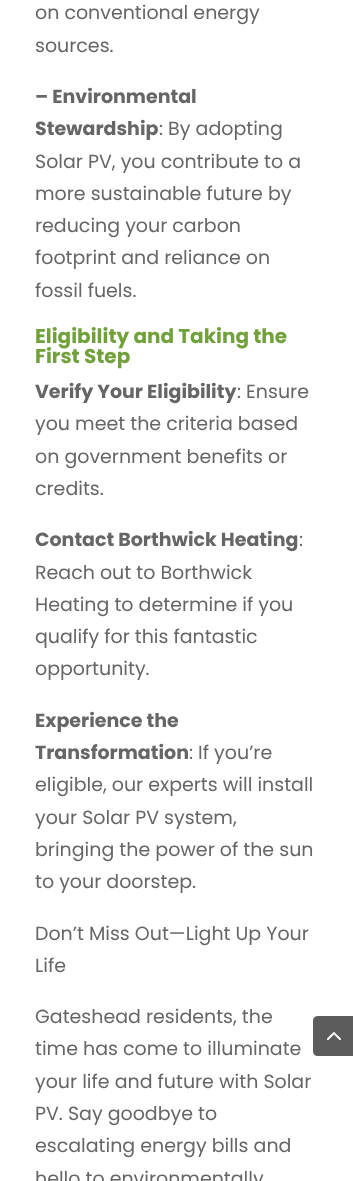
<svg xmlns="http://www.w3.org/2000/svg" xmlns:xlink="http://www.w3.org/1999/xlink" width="353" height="1181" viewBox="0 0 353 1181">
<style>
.cls-1{font:19px Poppins;fill:#666666}
.cls-2{font:bold 19px Poppins;fill:#666666}
.cls-3{font:bold 20px Poppins;fill:#71a13a}
</style>
<rect width="100%" height="100%" fill="#ffffff"/>
<path fill="#999999" d="M318 1016H353V1056H318C315 1056 313 1054 313 1051V1021C313 1018 315 1016 318 1016Z"/>
<image xlink:href="image0.png" x="327" y="1032" width="14" height="8"/>
<path fill="#000000" fill-opacity="0.4" d="M318 1016H353V1056H318C315 1056 313 1054 313 1051V1021C313 1018 315 1016 318 1016Z"/>
<image xlink:href="image1.png" x="326" y="1032" width="15" height="9"/>
<text class="cls-1"><tspan x="35" y="19">on conventional energy</tspan><tspan x="35" y="52">sources.</tspan></text>
<text class="cls-2"><tspan x="35" y="103">– Environmental</tspan><tspan x="35" y="135">Stewardship</tspan></text>
<text class="cls-1" x="159" y="135">: By adopting</text>
<text class="cls-1"><tspan x="35" y="168">Solar PV, you contribute to a</tspan><tspan x="35" y="200">more sustainable future by</tspan><tspan x="35" y="232">reducing your carbon</tspan><tspan x="35" y="264">footprint and reliance on</tspan><tspan x="35" y="297">fossil fuels.</tspan></text>
<text class="cls-3"><tspan x="35" y="343">Eligibility and Taking the</tspan><tspan x="35" y="363">First Step</tspan></text>
<text class="cls-2" x="35" y="398">Verify Your Eligibility</text>
<text class="cls-1" x="237" y="398">: Ensure</text>
<text class="cls-1"><tspan x="35" y="430">you meet the criteria based</tspan><tspan x="35" y="463">on government benefits or</tspan><tspan x="35" y="495">credits.</tspan></text>
<text class="cls-2" x="35" y="546">Contact Borthwick Heating</text>
<text class="cls-1" x="299" y="546">:</text>
<text class="cls-1"><tspan x="35" y="579">Reach out to Borthwick</tspan><tspan x="35" y="611">Heating to determine if you</tspan><tspan x="35" y="643">qualify for this fantastic</tspan><tspan x="35" y="675">opportunity.</tspan></text>
<text class="cls-2"><tspan x="35" y="727">Experience the</tspan><tspan x="35" y="759">Transformation</tspan></text>
<text class="cls-1" x="189" y="759">: If you’re</text>
<text class="cls-1"><tspan x="35" y="791">eligible, our experts will install</tspan><tspan x="35" y="824">your Solar PV system,</tspan><tspan x="35" y="856">bringing the power of the sun</tspan><tspan x="35" y="888">to your doorstep.</tspan></text>
<text class="cls-1"><tspan x="35" y="940">Don’t Miss Out—Light Up Your</tspan><tspan x="35" y="972">Life</tspan></text>
<text class="cls-1"><tspan x="35" y="1023">Gateshead residents, the</tspan><tspan x="35" y="1055">time has come to illuminate</tspan><tspan x="35" y="1088">your life and future with Solar</tspan><tspan x="35" y="1120">PV. Say goodbye to</tspan><tspan x="35" y="1152">escalating energy bills and</tspan><tspan x="35" y="1185">hello to environmentally</tspan></text>
</svg>
